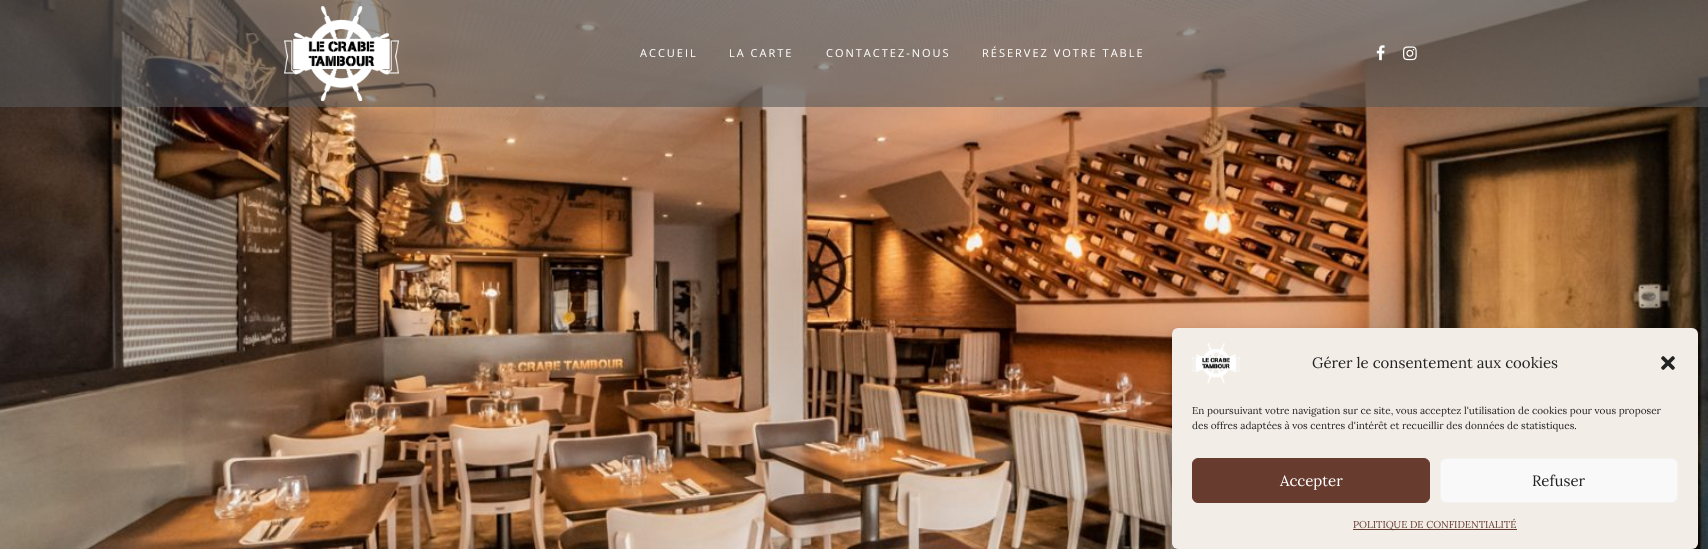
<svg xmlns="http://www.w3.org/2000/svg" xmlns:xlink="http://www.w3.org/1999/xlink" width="1708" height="549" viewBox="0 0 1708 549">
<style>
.cls-1{font:11px Open Sans;letter-spacing:2px;fill:#ffffff}
.cls-2{font:15px Lora;fill:#222222}
.cls-3{font:10px Lora;fill:#222222}
.cls-4{font:15px Lora;fill:#ffffff}
.cls-5{font:10px Lora;fill:#673c2f}
</style>
<rect width="100%" height="100%" fill="#ffffff"/>
<image xlink:href="image0.png" x="0" y="0" width="1708" height="549"/>
<rect fill="#595959" fill-opacity="0.6" x="0" y="0" width="1708" height="107"/>
<image xlink:href="image1.png" x="284" y="6" width="115" height="95"/>
<image xlink:href="image2.png" x="1376" y="45" width="9" height="16"/>
<image xlink:href="image3.png" x="1403" y="46" width="14" height="15"/>
<rect fill="#000000" fill-opacity="0.23" filter="blur(3px)" x="1172" y="334" width="526" height="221" rx="6"/>
<rect fill="#000000" fill-opacity="0.19" filter="blur(10px)" x="1172" y="338" width="526" height="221" rx="6"/>
<rect fill="#f2ede7" x="1172" y="328" width="526" height="221" rx="6"/>
<image xlink:href="image4.png" x="1192" y="343" width="48" height="40"/>
<image xlink:href="image5.png" x="1661" y="356" width="14" height="14"/>
<rect fill="#673c2f" stroke="#673c2f" x="1192.5" y="458.5" width="237" height="44" rx="5.5"/>
<rect fill="#f9f9f9" stroke="#f2f2f2" x="1440.5" y="458.5" width="237" height="44" rx="5.5"/>
<rect fill="#673c2f" x="1353" y="529" width="164" height="1"/>
<text class="cls-1" x="640" y="57">ACCUEIL</text>
<text class="cls-1" x="729" y="57">LA CARTE</text>
<text class="cls-1" x="826" y="57">CONTACTEZ-NOUS</text>
<text class="cls-1" x="982" y="57">RÉSERVEZ VOTRE TABLE</text>
<text class="cls-2" x="1312" y="368">Gérer le consentement aux cookies</text>
<text class="cls-3"><tspan x="1192" y="414">En poursuivant votre navigation sur ce site, vous acceptez l'utilisation de cookies pour vous proposer</tspan><tspan x="1192" y="429">des offres adaptées à vos centres d'intérêt et recueillir des données de statistiques.</tspan></text>
<text class="cls-4" x="1280" y="486">Accepter</text>
<text class="cls-2" x="1532" y="486">Refuser</text>
<text class="cls-5" x="1353" y="528">POLITIQUE DE CONFIDENTIALITÉ</text>
</svg>
